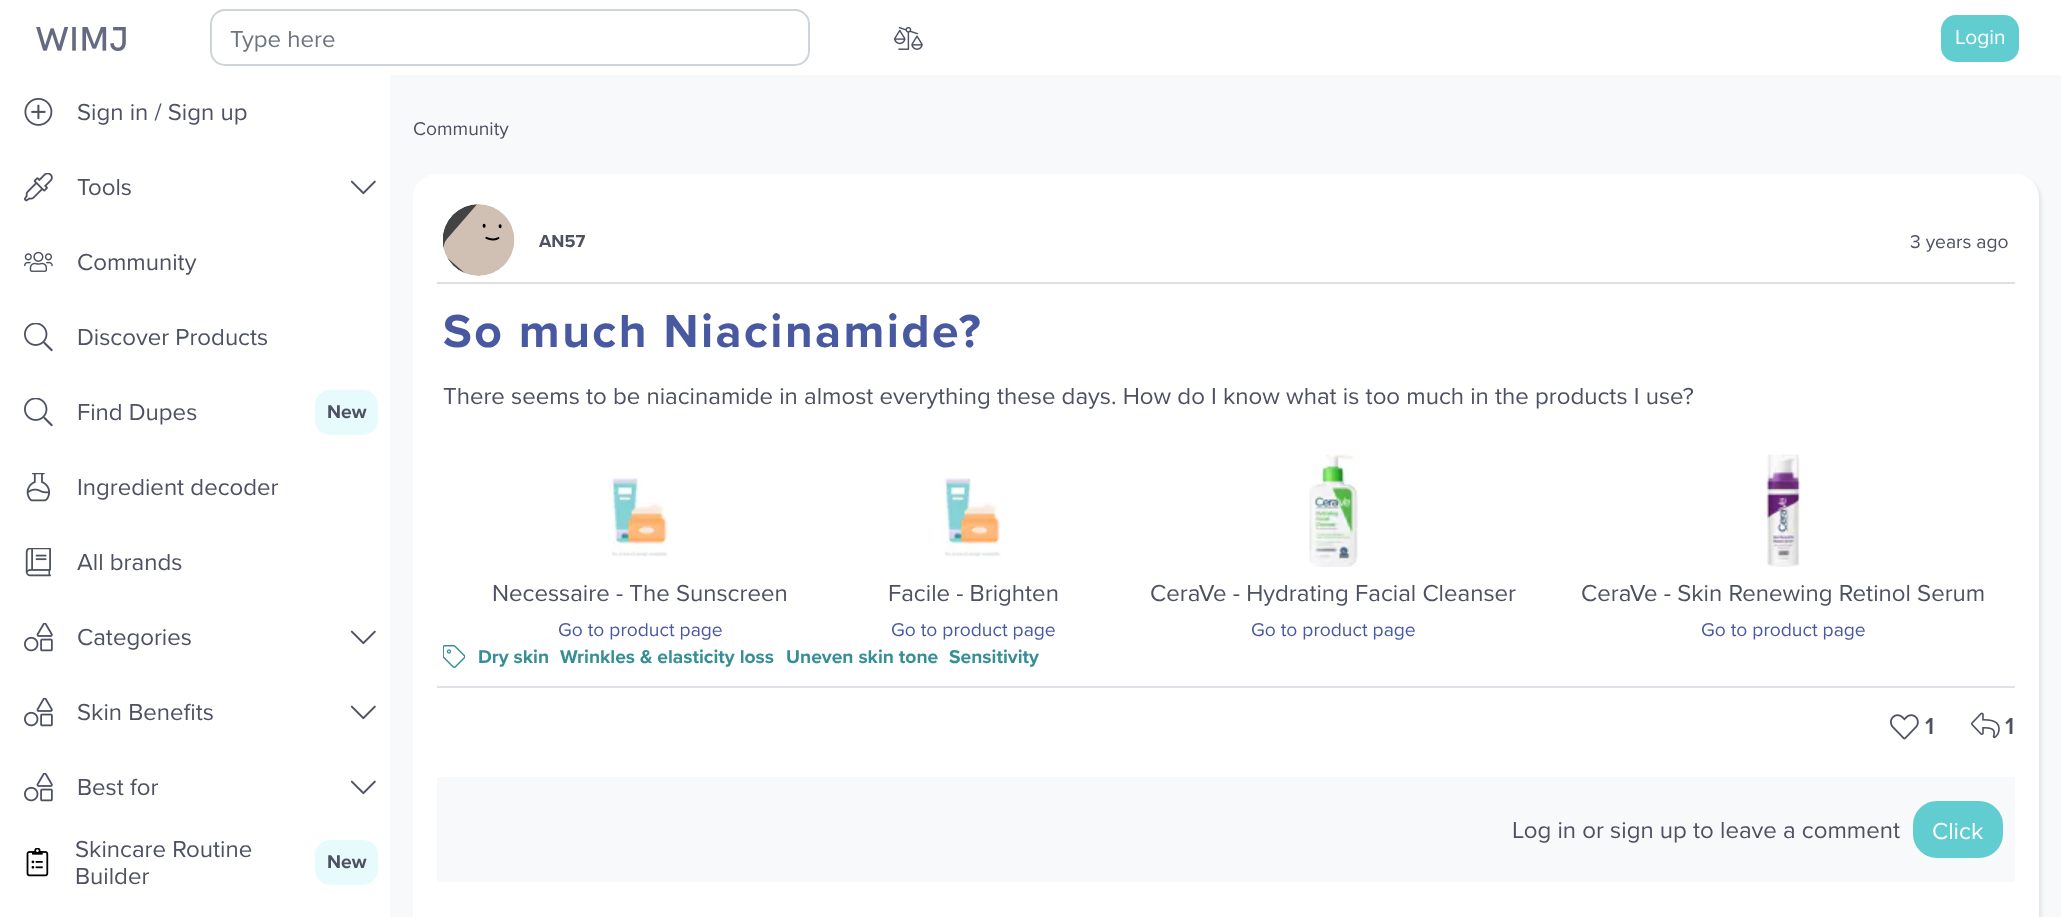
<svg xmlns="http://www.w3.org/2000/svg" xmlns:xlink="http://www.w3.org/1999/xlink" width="2061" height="917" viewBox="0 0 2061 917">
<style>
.cls-1{font:24px Proxima Nova;fill:#6c757d}
.cls-2{font:21px Proxima Nova;fill:#ffffff}
.cls-3{font:24px Proxima Nova;fill:#4d5162}
.cls-4{font:bold 19.25px Proxima Nova;fill:#4d5162}
.cls-5{font:19.25px Proxima Nova;fill:#4d5162}
.cls-6{font:bold 18px Proxima Nova;fill:#4d5162}
.cls-7{font:bold 48px Proxima Nova;letter-spacing:2.4px;fill:#4858a1}
.cls-8{font:19.25px Proxima Nova;fill:#4858a1}
.cls-9{font:bold 19.25px Proxima Nova;fill:#358f94}
.cls-10{font:600 24px Proxima Nova;fill:#4d5162}
.cls-11{font:24px Proxima Nova;fill:#ffffff}
</style>
<rect width="100%" height="100%" fill="#ffffff"/>
<image xlink:href="image0.png" x="36" y="27" width="90" height="24"/>
<rect fill="none" stroke="#ced4da" stroke-width="2" x="211" y="10" width="598" height="55" rx="14"/>
<image xlink:href="image1.png" x="894" y="26" width="29" height="24"/>
<rect fill="#62cdd0" stroke="#62cdd0" stroke-width="2" x="1942" y="16" width="76" height="45" rx="14"/>
<image xlink:href="image2.png" x="24" y="98" width="29" height="28"/>
<image xlink:href="image3.png" x="24" y="173" width="29" height="29"/>
<image xlink:href="image4.png" x="350" y="180" width="26" height="15"/>
<image xlink:href="image5.png" x="24" y="251" width="29" height="21"/>
<image xlink:href="image6.png" x="24" y="323" width="29" height="29"/>
<image xlink:href="image6.png" x="24" y="398" width="29" height="29"/>
<rect fill="#e8fbfc" x="315" y="390" width="63" height="45" rx="15"/>
<image xlink:href="image7.png" x="26" y="473" width="25" height="29"/>
<image xlink:href="image8.png" x="25" y="548" width="26" height="29"/>
<image xlink:href="image9.png" x="24" y="623" width="29" height="29"/>
<image xlink:href="image4.png" x="350" y="630" width="26" height="15"/>
<image xlink:href="image9.png" x="24" y="698" width="29" height="29"/>
<image xlink:href="image4.png" x="350" y="705" width="26" height="15"/>
<image xlink:href="image9.png" x="24" y="773" width="29" height="29"/>
<image xlink:href="image4.png" x="350" y="780" width="26" height="15"/>
<image xlink:href="image10.png" x="26" y="848" width="23" height="29"/>
<rect fill="#e8fbfc" x="315" y="840" width="63" height="45" rx="15"/>
<rect fill="#f8f9fa" x="390" y="75" width="1671" height="842"/>
<rect fill="#000000" fill-opacity="0.07" filter="blur(1.5px)" x="416" y="177" width="1626" height="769" rx="24"/>
<rect fill="#ffffff" x="413" y="174" width="1626" height="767" rx="24"/>
<rect fill="#dfdfdf" x="437" y="282" width="1578" height="2"/>
<image xlink:href="image11.png" x="443" y="204" width="72" height="72"/>
<image xlink:href="image12.png" x="607" y="478" width="61" height="79"/>
<image xlink:href="image13.png" x="940" y="478" width="61" height="79"/>
<image xlink:href="image14.png" x="1309" y="454" width="49" height="113"/>
<image xlink:href="image15.png" x="1766" y="454" width="35" height="113"/>
<image xlink:href="image16.png" x="443" y="645" width="22" height="23"/>
<rect fill="#dee2e6" x="437" y="686" width="1578" height="2"/>
<image xlink:href="image17.png" x="1890" y="714" width="29" height="26"/>
<image xlink:href="image18.png" x="1971" y="712" width="29" height="27"/>
<rect fill="#f8f9fa" x="437" y="777" width="1578" height="105"/>
<rect fill="#62cdd0" stroke="#62cdd0" stroke-width="2" x="1914" y="802" width="88" height="55" rx="23"/>
<text class="cls-1" x="230" y="47">Type here</text>
<text class="cls-2" x="1955" y="44">Login</text>
<text class="cls-3" x="77" y="120">Sign in / Sign up</text>
<text class="cls-3" x="77" y="195">Tools</text>
<text class="cls-3" x="77" y="270">Community</text>
<text class="cls-3" x="77" y="345">Discover Products</text>
<text class="cls-3" x="77" y="420">Find Dupes</text>
<text class="cls-4" x="327" y="418">New</text>
<text class="cls-3" x="77" y="495">Ingredient decoder</text>
<text class="cls-3" x="77" y="570">All brands</text>
<text class="cls-3" x="77" y="645">Categories</text>
<text class="cls-3" x="77" y="720">Skin Benefits</text>
<text class="cls-3" x="77" y="795">Best for</text>
<text class="cls-3"><tspan x="75" y="857">Skincare Routine</tspan><tspan x="75" y="884">Builder</tspan></text>
<text class="cls-4" x="327" y="868">New</text>
<text class="cls-5" x="413" y="135">Community</text>
<text class="cls-6" x="539" y="247">AN57</text>
<text class="cls-5" x="1910" y="248">3 years ago</text>
<text class="cls-7" x="443" y="347">So much Niacinamide?</text>
<text class="cls-3" x="443" y="404">There seems to be niacinamide in almost everything these days. How do I know what is too much in the products I use?</text>
<text class="cls-3" x="492" y="601">Necessaire - The Sunscreen</text>
<text class="cls-8" x="558" y="636">Go to product page</text>
<text class="cls-3" x="888" y="601">Facile - Brighten</text>
<text class="cls-8" x="891" y="636">Go to product page</text>
<text class="cls-3" x="1150" y="601">CeraVe - Hydrating Facial Cleanser</text>
<text class="cls-8" x="1251" y="636">Go to product page</text>
<text class="cls-3" x="1581" y="601">CeraVe - Skin Renewing Retinol Serum</text>
<text class="cls-8" x="1701" y="636">Go to product page</text>
<text class="cls-9" x="478" y="663">Dry skin</text>
<text class="cls-9" x="560" y="663">Wrinkles &amp; elasticity loss</text>
<text class="cls-9" x="786" y="663">Uneven skin tone</text>
<text class="cls-9" x="949" y="663">Sensitivity</text>
<text class="cls-10" x="1925" y="734">1</text>
<text class="cls-10" x="2005" y="734">1</text>
<text class="cls-3" x="1512" y="838">Log in or sign up to leave a comment</text>
<text class="cls-11" x="1932" y="839">Click</text>
</svg>
